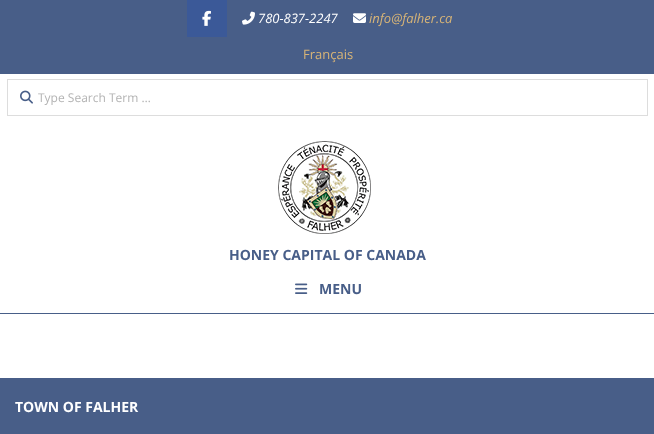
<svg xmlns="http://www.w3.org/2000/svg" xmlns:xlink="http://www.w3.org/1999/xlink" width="654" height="434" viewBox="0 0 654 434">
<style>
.cls-1{font:italic 13px Open Sans;fill:#ffffff}
.cls-2{font:italic 13px Open Sans;fill:#d7b477}
.cls-3{font:13px Open Sans;fill:#d7b477}
.cls-4{font:12px Open Sans;fill:#b3b3b3}
.cls-5{font:bold 14px Open Sans;fill:#485e88}
.cls-6{font:bold 14px Open Sans;fill:#ffffff}
</style>
<rect width="100%" height="100%" fill="#ffffff"/>
<rect fill="#485e88" x="0" y="0" width="654" height="74"/>
<rect fill="#3b5998" x="187" y="0" width="40" height="37"/>
<image xlink:href="image0.png" x="202" y="10" width="9" height="16"/>
<image xlink:href="image1.png" x="242" y="11" width="13" height="14"/>
<image xlink:href="image2.png" x="353" y="13" width="13" height="10"/>
<rect fill="none" stroke="#dddddd" x="7.5" y="79.5" width="640" height="36"/>
<image xlink:href="image3.png" x="20" y="90" width="13" height="14"/>
<rect fill="#485e88" x="0" y="313" width="654" height="1"/>
<image xlink:href="image4.png" x="278" y="141" width="93" height="93"/>
<image xlink:href="image5.png" x="295" y="283" width="13" height="11"/>
<rect fill="#485e88" x="0" y="378" width="654" height="56"/>
<text class="cls-1" x="258" y="23">780-837-2247</text>
<text class="cls-2" x="369" y="23">info@falher.ca</text>
<text class="cls-3" x="303" y="59">Français</text>
<text class="cls-4" x="38" y="102">Type Search Term …</text>
<text class="cls-5" x="229" y="260">HONEY CAPITAL OF CANADA</text>
<text class="cls-5" x="319" y="294">MENU</text>
<text class="cls-6" x="15" y="412">TOWN OF FALHER</text>
</svg>
